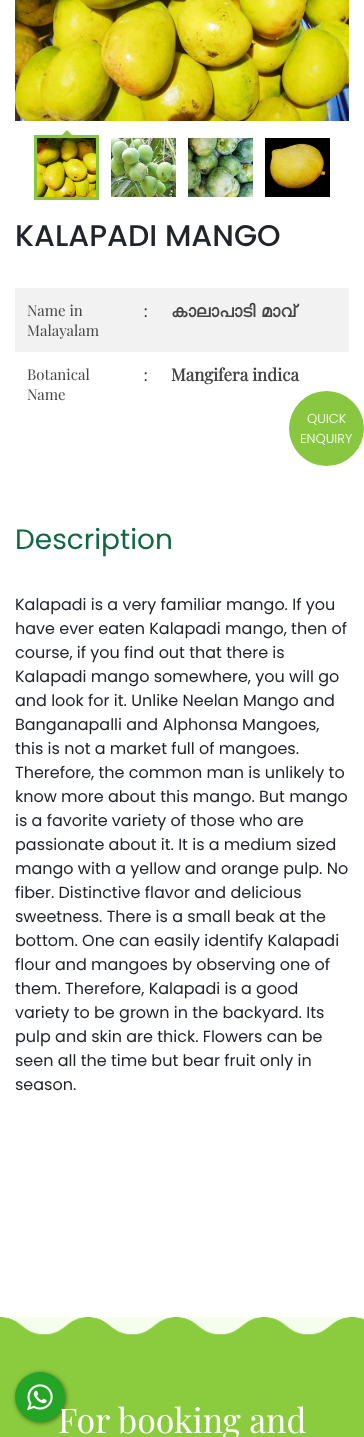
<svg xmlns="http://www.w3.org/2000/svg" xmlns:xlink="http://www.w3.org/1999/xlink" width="364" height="1437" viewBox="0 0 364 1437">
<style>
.cls-1{font:500 30px Poppins;fill:#212529}
.cls-2{font:15px Playfair Display;fill:#444544}
.cls-3{font:16px Poppins;fill:#212529}
.cls-4{font:bold 17px FreeSans;fill:#444544}
.cls-5{font:bold 17px Playfair Display;fill:#444544}
.cls-6{font:28px Poppins;fill:#0f6841}
.cls-7{font:300 13px Poppins;fill:#ffffff}
.cls-8{font:34px Playfair Display;fill:#ffffff}
</style>
<rect width="100%" height="100%" fill="#ffffff"/>
<image xlink:href="image0.png" x="15" y="0" width="334" height="121"/>
<image xlink:href="image1.png" x="37" y="138" width="59" height="59"/>
<rect fill="none" stroke="#89c740" stroke-width="3" x="35.5" y="136.5" width="62" height="62"/>
<path fill="#89c740" d="M72 135H62L67 130Z"/>
<image xlink:href="image2.png" x="111" y="138" width="65" height="59"/>
<image xlink:href="image3.png" x="188" y="138" width="65" height="59"/>
<image xlink:href="image4.png" x="265" y="138" width="65" height="59"/>
<rect fill="#f2f2f2" x="15" y="288" width="334" height="64"/>
<circle fill="#89c740" cx="326.5" cy="428.5" r="37.5"/>
<rect fill="#f5fdec" x="2" y="1317" width="362" height="18"/>
<image xlink:href="image6.png" x="0" y="1317" width="364" height="120"/>
<rect fill="#000000" fill-opacity="0.5" filter="blur(2.5px)" x="16" y="1373" width="50" height="50" rx="25"/>
<text class="cls-1" x="15" y="246">KALAPADI MANGO</text>
<text class="cls-2"><tspan x="27" y="316">Name in</tspan><tspan x="27" y="336">Malayalam</tspan></text>
<text class="cls-3" x="144" y="317">:</text>
<text class="cls-4" x="171" y="317" word-spacing="-1">കാലാപാടി മാവ്</text>
<text class="cls-2"><tspan x="27" y="380">Botanical</tspan><tspan x="27" y="400">Name</tspan></text>
<text class="cls-3" x="144" y="381">:</text>
<text class="cls-5" x="171" y="381">Mangifera indica</text>
<text class="cls-6" x="15" y="549">Description</text>
<text class="cls-3"><tspan x="15" y="610">Kalapadi is a very familiar mango. If you</tspan><tspan x="15" y="634">have ever eaten Kalapadi mango, then of</tspan><tspan x="15" y="658">course, if you find out that there is</tspan><tspan x="15" y="682">Kalapadi mango somewhere, you will go</tspan><tspan x="15" y="706">and look for it. Unlike Neelan Mango and</tspan><tspan x="15" y="730">Banganapalli and Alphonsa Mangoes,</tspan><tspan x="15" y="754">this is not a market full of mangoes.</tspan><tspan x="15" y="778">Therefore, the common man is unlikely to</tspan><tspan x="15" y="802">know more about this mango. But mango</tspan><tspan x="15" y="826">is a favorite variety of those who are</tspan><tspan x="15" y="850">passionate about it. It is a medium sized</tspan><tspan x="15" y="874">mango with a yellow and orange pulp. No</tspan><tspan x="15" y="898">fiber. Distinctive flavor and delicious</tspan><tspan x="15" y="922">sweetness. There is a small beak at the</tspan><tspan x="15" y="946">bottom. One can easily identify Kalapadi</tspan><tspan x="15" y="970">flour and mangoes by observing one of</tspan><tspan x="15" y="994">them. Therefore, Kalapadi is a good</tspan><tspan x="15" y="1018">variety to be grown in the backyard. Its</tspan><tspan x="15" y="1042">pulp and skin are thick. Flowers can be</tspan><tspan x="15" y="1066">seen all the time but bear fruit only in</tspan><tspan x="15" y="1090">season.</tspan></text>
<text class="cls-7" x="307" y="423">QUICK</text>
<text class="cls-7" x="300" y="443">ENQUIRY</text>
<text class="cls-8" x="58" y="1433">For booking and</text>
<circle fill="#25a525" cx="40" cy="1397" r="25"/>
<image xlink:href="image5.png" x="27" y="1384" width="26" height="27"/>
</svg>
